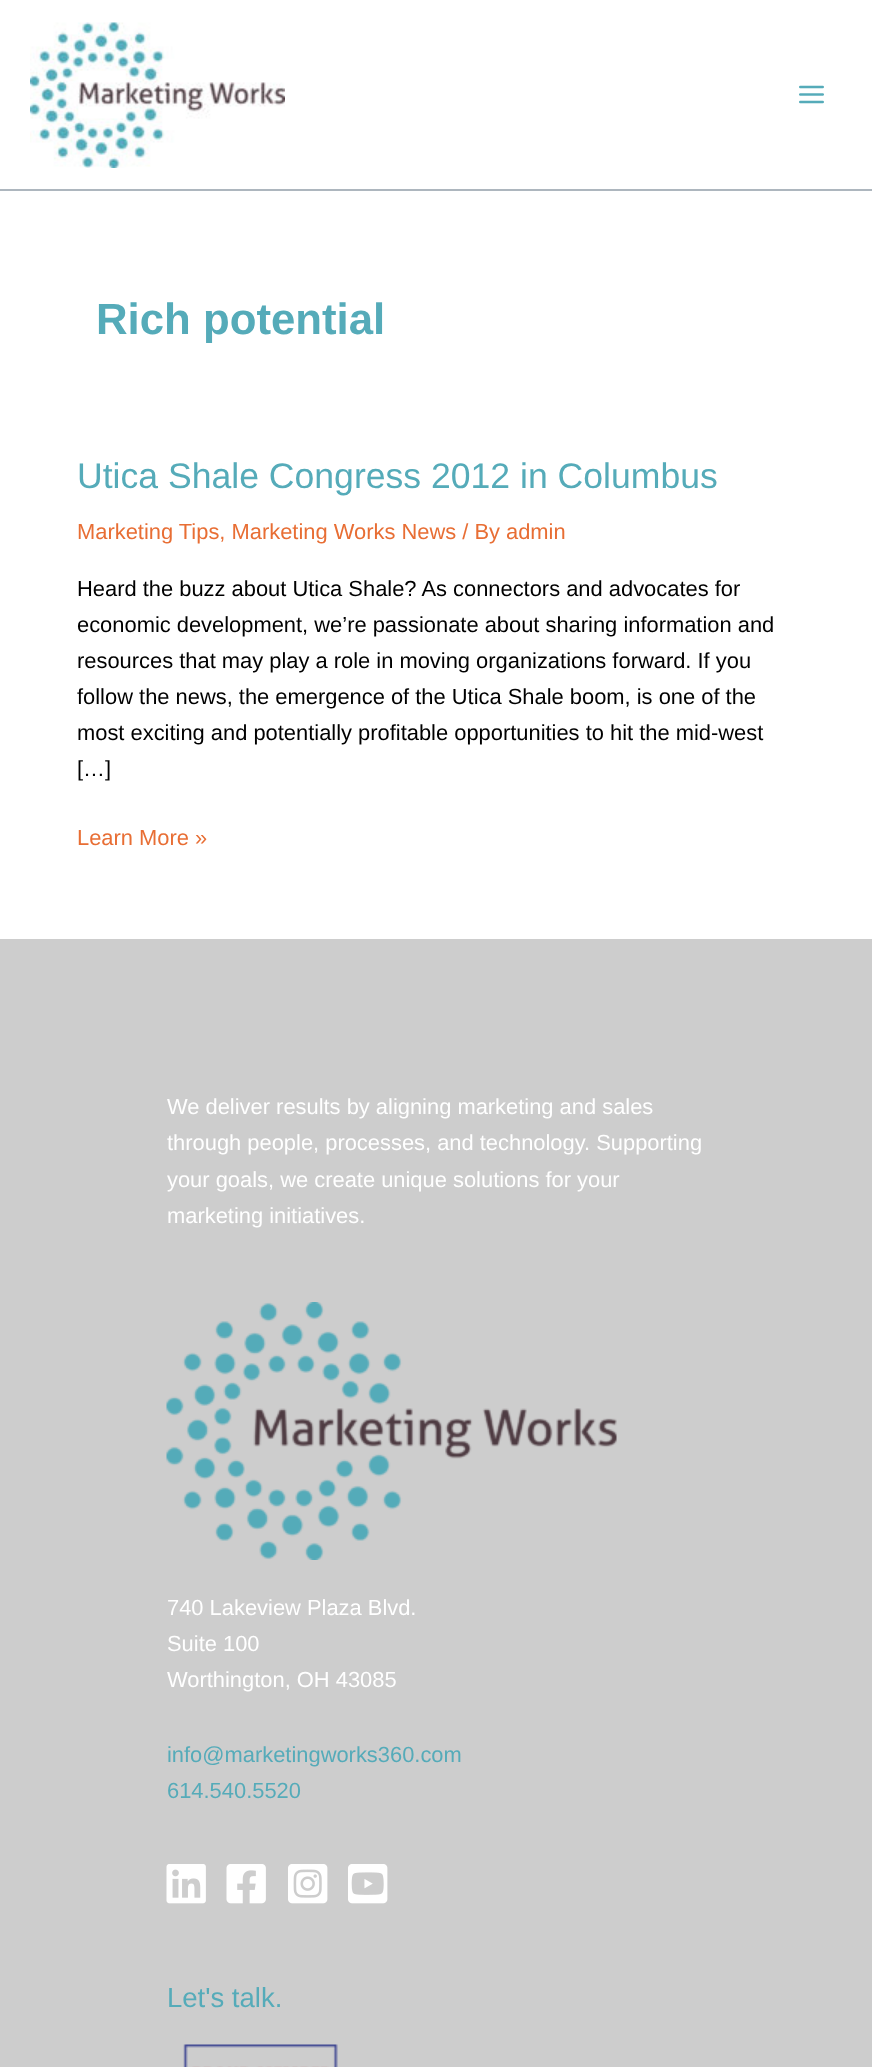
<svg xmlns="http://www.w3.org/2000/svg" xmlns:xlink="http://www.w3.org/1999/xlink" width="872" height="2067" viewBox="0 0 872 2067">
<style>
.cls-1{font:bold 43.75px Liberation Sans;fill:#55abb9}
.cls-2{font:35.6px Liberation Sans;fill:#55abb9}
.cls-3{font:21.9px Liberation Sans;fill:#e86e34}
.cls-4{font:21.9px Liberation Sans;fill:#000000}
.cls-5{font:21.9px Liberation Sans;fill:#ffffff}
.cls-6{font:21.9px Liberation Sans;fill:#55abb9}
.cls-7{font:27.5px Liberation Sans;fill:#55abb9}
</style>
<rect width="100%" height="100%" fill="#ffffff"/>
<rect fill="#adb6be" x="0" y="189" width="872" height="2"/>
<image xlink:href="image0.png" x="30" y="22" width="255" height="146"/>
<image xlink:href="image1.png" x="799" y="85" width="25" height="19"/>
<rect fill="#cdcdcd" x="0" y="939" width="872" height="1128"/>
<image xlink:href="image2.png" x="166" y="1302" width="451" height="258"/>
<image xlink:href="image3.png" x="166" y="1864" width="40" height="40"/>
<image xlink:href="image4.png" x="226" y="1864" width="40" height="40"/>
<image xlink:href="image5.png" x="288" y="1864" width="40" height="40"/>
<image xlink:href="image6.png" x="348" y="1864" width="40" height="40"/>
<image xlink:href="image7.png" x="183" y="2044" width="155" height="23"/>
<text class="cls-1" x="96" y="334">Rich potential</text>
<text class="cls-2" x="77" y="488">Utica Shale Congress 2012 in Columbus</text>
<text class="cls-3" x="77" y="539">Marketing Tips, Marketing Works News / By admin</text>
<text class="cls-4"><tspan x="77" y="596">Heard the buzz about Utica Shale? As connectors and advocates for</tspan><tspan x="77" y="632">economic development, we’re passionate about sharing information and</tspan><tspan x="77" y="668">resources that may play a role in moving organizations forward. If you</tspan><tspan x="77" y="704">follow the news, the emergence of the Utica Shale boom, is one of the</tspan><tspan x="77" y="740">most exciting and potentially profitable opportunities to hit the mid-west</tspan><tspan x="77" y="776">[…]</tspan></text>
<text class="cls-3" x="77" y="845">Learn More »</text>
<text class="cls-5"><tspan x="167" y="1114">We deliver results by aligning marketing and sales</tspan><tspan x="167" y="1150">through people, processes, and technology. Supporting</tspan><tspan x="167" y="1187">your goals, we create unique solutions for your</tspan><tspan x="167" y="1223">marketing initiatives.</tspan></text>
<text class="cls-5"><tspan x="167" y="1615">740 Lakeview Plaza Blvd.</tspan><tspan x="167" y="1651">Suite 100</tspan><tspan x="167" y="1687">Worthington, OH 43085</tspan></text>
<text class="cls-6"><tspan x="167" y="1762">info@marketingworks360.com</tspan><tspan x="167" y="1798">614.540.5520</tspan></text>
<text class="cls-7" x="167" y="2007">Let's talk.</text>
</svg>
